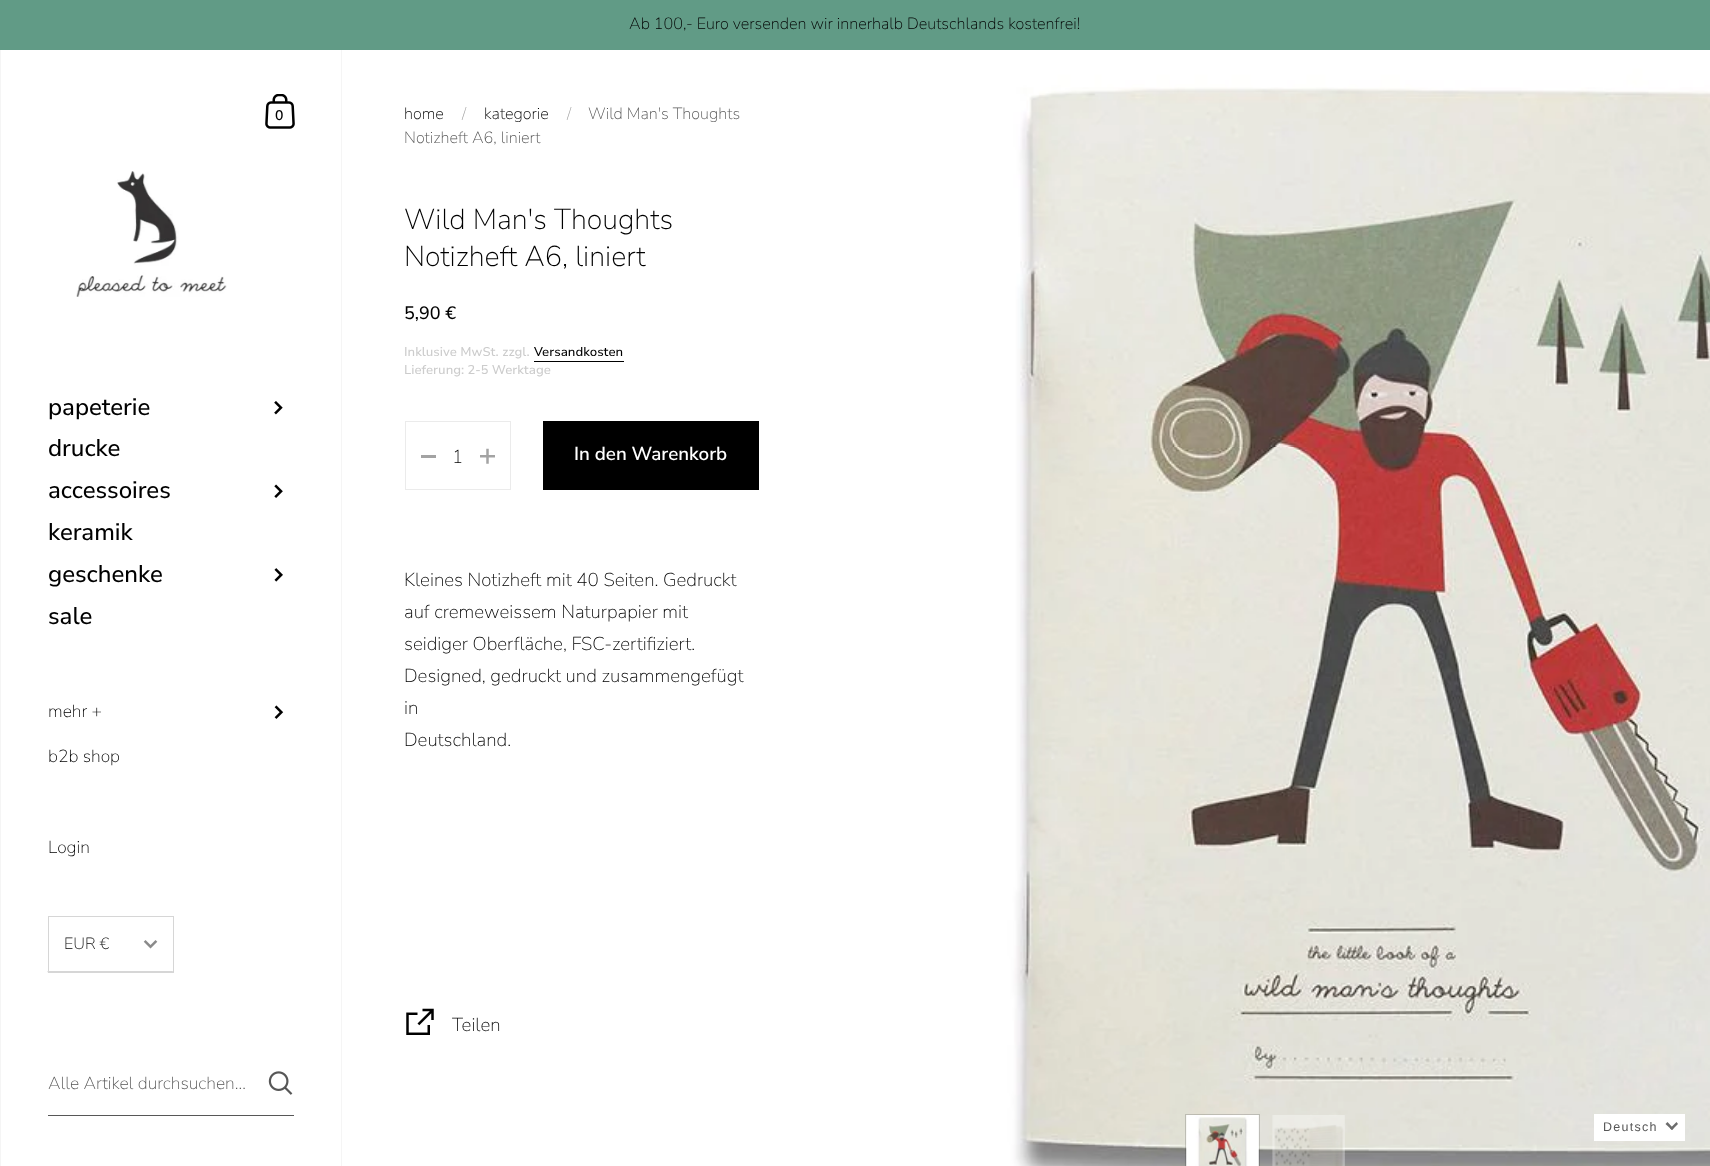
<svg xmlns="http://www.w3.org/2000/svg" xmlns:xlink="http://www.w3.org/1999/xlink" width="1710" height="1166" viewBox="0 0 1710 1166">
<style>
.cls-1{font:200 16.25px Nunito Sans;fill:#000000}
.cls-2{font:600 14px Nunito Sans;fill:#000000}
.cls-3{font:500 24px Nunito Sans;fill:#000000}
.cls-4{font:200 17.5px Nunito Sans;fill:#000000}
.cls-5{font:200 17.5px Nunito Sans;fill:#575757}
.cls-6{font:200 16.25px Nunito Sans;fill:#a3a3a3}
.cls-7{font:200 16.25px Nunito Sans;fill:#575757}
.cls-8{font:200 28.75px Nunito Sans;fill:#000000}
.cls-9{font:500 18px Nunito Sans;fill:#000000}
.cls-10{font:500 12.75px 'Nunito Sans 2';fill:#cccccc}
.cls-11{font:500 12.75px 'Nunito Sans 2';fill:#000000}
.cls-12{font:200 18.75px Nunito Sans;fill:#000000}
.cls-13{font:600 18.75px Nunito Sans;fill:#ffffff}
.cls-14{font:12.5px Liberation Sans;letter-spacing:1.25px;fill:#575757}
</style>
<rect width="100%" height="100%" fill="#ffffff"/>
<rect fill="#619b86" x="0" y="0" width="1710" height="50"/>
<rect fill="#f5f5f5" x="341" y="50" width="1" height="1116"/>
<image xlink:href="image0.png" x="265" y="94" width="30" height="35"/>
<image xlink:href="image1.png" x="76" y="171" width="151" height="126"/>
<image xlink:href="image2.png" x="274" y="401" width="9" height="14"/>
<image xlink:href="image3.png" x="274" y="484" width="9" height="14"/>
<image xlink:href="image4.png" x="274" y="568" width="9" height="14"/>
<image xlink:href="image5.png" x="274" y="705" width="10" height="14"/>
<rect fill="none" stroke="#d6d6d6" x="48.5" y="916.5" width="125" height="56"/>
<image xlink:href="image6.png" x="143" y="940" width="15" height="9"/>
<rect fill="#ffffff" x="48" y="971" width="126" height="1"/>
<path fill="#d6d6d6" d="M174 971V972.5L172.5 971Z"/>
<path fill="#000000" fill-opacity="0.16" d="M174 972H48L49 971H172Z"/>
<path fill="#000000" fill-opacity="0.16" d="M47.5 972.5V971H49Z"/>
<rect fill="#f5f5f5" x="0" y="50" width="1" height="1116"/>
<rect fill="#575757" x="48" y="1115" width="246" height="1"/>
<image xlink:href="image7.png" x="268" y="1071" width="25" height="24"/>
<rect fill="#000000" x="534" y="361" width="90" height="1"/>
<rect fill="none" stroke="#ebebeb" x="405.5" y="421.5" width="105" height="68"/>
<rect fill="#a3a3a3" x="421" y="455" width="15" height="3"/>
<image xlink:href="image8.png" x="480" y="448" width="15" height="16"/>
<rect fill="#000000" x="543" y="421" width="216" height="69"/>
<image xlink:href="image9.png" x="406" y="1008" width="28" height="27"/>
<image xlink:href="image10.png" x="821" y="50" width="889" height="1116"/>
<rect fill="none" stroke="#000000" stroke-opacity="0.16" x="1185.5" y="1114.5" width="74" height="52"/>
<image xlink:href="image11.png" x="1186" y="1115" width="73" height="51"/>
<image xlink:href="image12.png" x="1272" y="1115" width="73" height="51"/>
<rect fill="#ffffff" x="1594" y="1114" width="91" height="27"/>
<path fill="#6c6c6c" d="M1676.5 1122L1678 1124L1672 1130L1670 1128.5Z"/>
<path fill="#6c6c6c" d="M1667.5 1122L1673.5 1128.5L1672 1130L1665.5 1124Z"/>
<text class="cls-1" x="629" y="29">Ab 100,- Euro versenden wir innerhalb Deutschlands kostenfrei!</text>
<text class="cls-2" x="275" y="120">0</text>
<text class="cls-3"><tspan x="48" y="415">papeterie</tspan><tspan x="48" y="456">drucke</tspan><tspan x="48" y="498">accessoires</tspan><tspan x="48" y="540">keramik</tspan><tspan x="48" y="582">geschenke</tspan><tspan x="48" y="624">sale</tspan></text>
<text class="cls-4" x="48" y="717">mehr +</text>
<text class="cls-4" x="48" y="762">b2b shop</text>
<text class="cls-4" x="48" y="853">Login</text>
<text class="cls-1" x="64" y="949">EUR €</text>
<text class="cls-5" x="48" y="1089">Alle Artikel durchsuchen...</text>
<text class="cls-1" x="404" y="119">home</text>
<text class="cls-6" x="462" y="119">/</text>
<text class="cls-1" x="484" y="119">kategorie</text>
<text class="cls-6" x="567" y="119">/</text>
<text class="cls-7" x="588" y="119">Wild Man's Thoughts</text>
<text class="cls-7" x="404" y="143">Notizheft A6, liniert</text>
<text class="cls-8"><tspan x="404" y="229">Wild Man's Thoughts</tspan><tspan x="404" y="266">Notizheft A6, liniert</tspan></text>
<text class="cls-9" x="404" y="319">5,90 €</text>
<text class="cls-10" x="404" y="356">Inklusive MwSt. zzgl.</text>
<text class="cls-11" x="534" y="356">Versandkosten</text>
<text class="cls-10" x="404" y="374">Lieferung: 2-5 Werktage</text>
<text class="cls-12" x="452" y="463">1</text>
<text class="cls-13" x="574" y="460">In den Warenkorb</text>
<text class="cls-12"><tspan x="404" y="586">Kleines Notizheft mit 40 Seiten. Gedruckt</tspan><tspan x="404" y="618">auf cremeweissem Naturpapier mit</tspan><tspan x="404" y="650">seidiger Oberfläche, FSC-zertifiziert.</tspan><tspan x="404" y="682">Designed, gedruckt und zusammengefügt</tspan><tspan x="404" y="714">in</tspan><tspan x="404" y="746">Deutschland.</tspan></text>
<text class="cls-12" x="452" y="1031">Teilen</text>
<text class="cls-14" x="1603" y="1131">Deutsch</text>
</svg>
